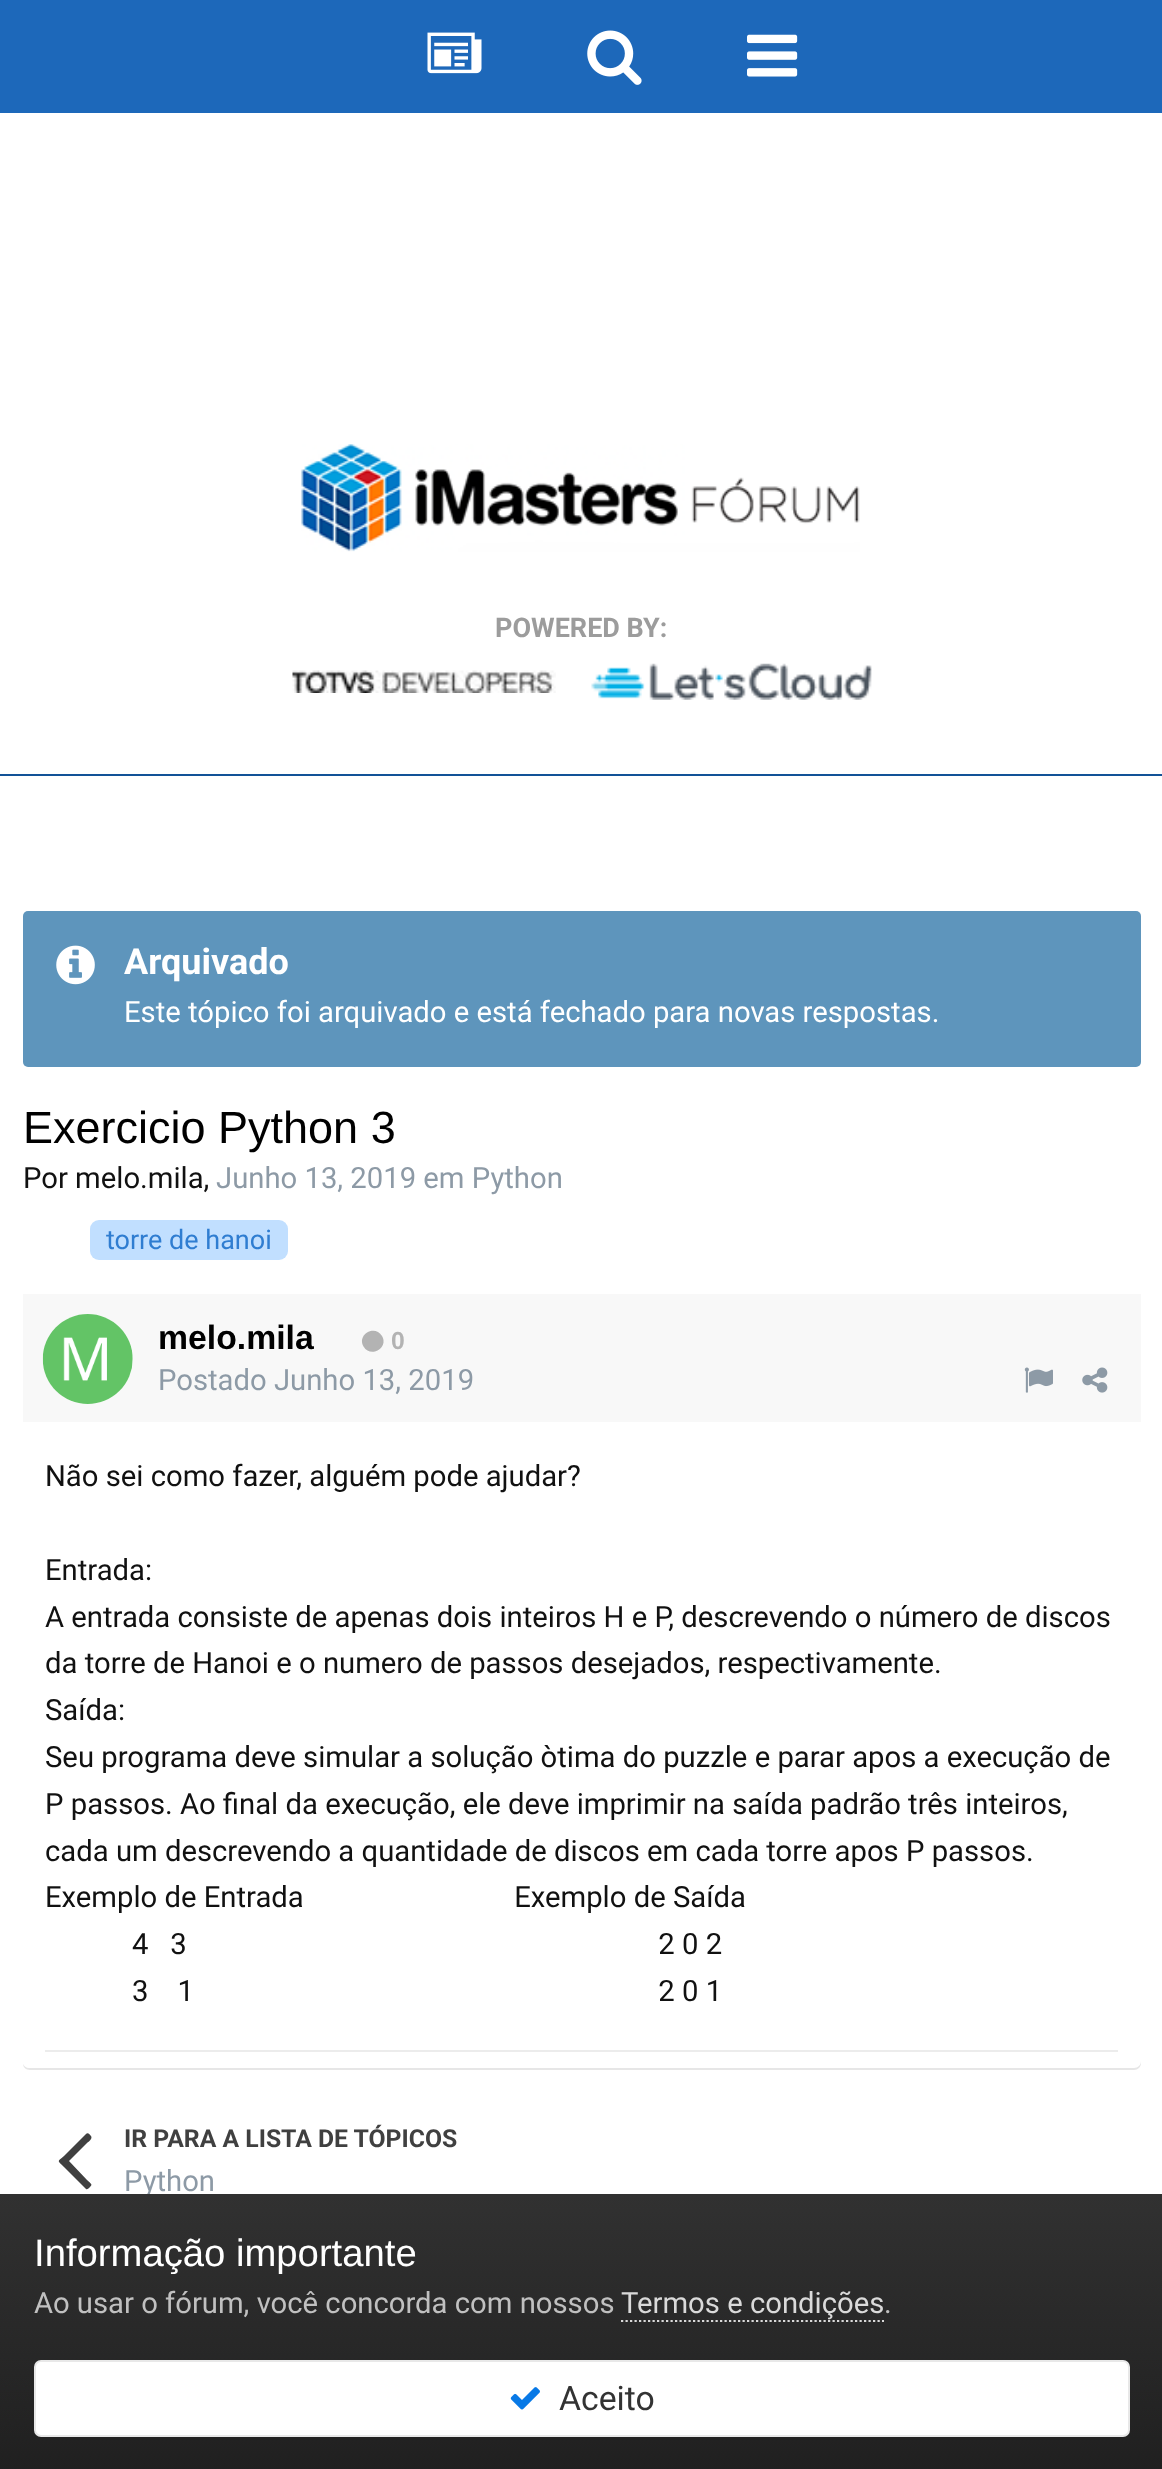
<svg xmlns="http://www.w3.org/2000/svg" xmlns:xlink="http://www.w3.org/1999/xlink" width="1162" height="2469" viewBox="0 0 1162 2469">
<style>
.cls-1{font:bold 27px Roboto;fill:#9c9c9c}
.cls-2{font:bold 36px Roboto;fill:#ffffff}
.cls-3{font:29.25px Roboto;fill:#ffffff}
.cls-4{font:45px Liberation Sans;fill:#000000}
.cls-5{font:29.25px Roboto;fill:#111111}
.cls-6{font:29.25px Roboto;fill:#8d9aa6}
.cls-7{font:27px Roboto;fill:#2f7dd1}
.cls-8{font:bold 33.75px Liberation Sans;fill:#000000}
.cls-9{font:bold 24.75px Liberation Sans;fill:#b3b3b3}
.cls-10{font:bold 24.75px Roboto;fill:#404040}
.cls-11{font:38.25px Liberation Sans;fill:#ffffff}
.cls-12{font:29.25px Roboto;fill:#c0c0c0}
.cls-13{font:29.25px Roboto;fill:#dadada}
.cls-14{font:33.75px Roboto;fill:#333333}
</style>
<defs>
<linearGradient id="g1" gradientUnits="userSpaceOnUse" x1="582" y1="2194" x2="582" y2="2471"><stop offset="0" stop-color="#313131"/><stop offset="1" stop-color="#202020"/></linearGradient>
</defs>
<rect width="100%" height="100%" fill="#ffffff"/>
<rect fill="#125297" x="0" y="774" width="1162" height="2"/>
<rect fill="#1d68ba" x="0" y="0" width="1162" height="113"/>
<image xlink:href="image0.png" x="427" y="32" width="55" height="42"/>
<image xlink:href="image1.png" x="587" y="30" width="55" height="55"/>
<image xlink:href="image2.png" x="747" y="34" width="51" height="43"/>
<image xlink:href="image3.png" x="301" y="444" width="559" height="108"/>
<image xlink:href="image4.png" x="292" y="670" width="264" height="23"/>
<image xlink:href="image5.png" x="591" y="663" width="281" height="37"/>
<rect fill="#5e95bc" x="23" y="911" width="1118" height="156" rx="5"/>
<image xlink:href="image6.png" x="56" y="945" width="39" height="40"/>
<rect fill="#c1dfff" x="90" y="1220" width="198" height="40" rx="9"/>
<path fill="#e6e6e6" d="M23 2064C23 2067 26 2070 30 2070H1134C1138 2070 1141 2067 1141 2063V1301V2061C1141 2065 1138 2068 1134 2068H29C26 2068 24 2066 23 2064Z"/>
<rect fill="#f8f8f8" x="23" y="1294" width="1118" height="128"/>
<circle fill="#ffffff" cx="88" cy="1359" r="45"/>
<image xlink:href="image7.png" x="42" y="1314" width="91" height="90"/>
<path fill="#b3b3b3" d="M382 1336C389 1348 370.5 1358.5 363.5 1346.5C356.5 1334.5 375 1324 382 1336Z"/>
<image xlink:href="image8.png" x="1024" y="1367" width="29" height="26"/>
<image xlink:href="image9.png" x="1082" y="1367" width="26" height="26"/>
<rect fill="#ececec" x="45" y="2050" width="1073" height="2"/>
<path fill="#404040" d="M91 2136C93 2139 88 2142 87 2143L69 2161L87 2180C91 2184 93 2184 90 2187C89 2188 87 2190 86 2189L64 2167C57 2160 57 2162 64 2156L86 2134C88 2132 90 2135 91 2136Z"/>
<text class="cls-1" x="495" y="637">POWERED BY:</text>
<text class="cls-2" x="124" y="974">Arquivado</text>
<text class="cls-3" x="124" y="1022">Este tópico foi arquivado e está fechado para novas respostas.</text>
<text class="cls-4" x="23" y="1143">Exercicio Python 3</text>
<text class="cls-5" x="23" y="1188">Por melo.mila,</text>
<text class="cls-6" x="216" y="1188">Junho 13, 2019 em Python</text>
<text class="cls-7" x="106" y="1249">torre de hanoi</text>
<text class="cls-8" x="158" y="1349">melo.mila</text>
<text class="cls-9" x="391" y="1349">0</text>
<text class="cls-6" x="158" y="1390">Postado Junho 13, 2019</text>
<text class="cls-5" x="45" y="1486">Não sei como fazer, alguém pode ajudar?</text>
<text class="cls-5" xml:space="preserve"><tspan x="45" y="1580">Entrada:</tspan><tspan x="45" y="1627">A entrada consiste de apenas dois inteiros H e P, descrevendo o número de discos</tspan><tspan x="45" y="1673">da torre de Hanoi e o numero de passos desejados, respectivamente.</tspan><tspan x="45" y="1720">Saída:</tspan><tspan x="45" y="1767">Seu programa deve simular a solução òtima do puzzle e parar apos a execução de</tspan><tspan x="45" y="1814">P passos. Ao final da execução, ele deve imprimir na saída padrão três inteiros,</tspan><tspan x="45" y="1861">cada um descrevendo a quantidade de discos em cada torre apos P passos.</tspan><tspan x="45" y="1907">Exemplo de Entrada                             Exemplo de Saída</tspan></text>
<text class="cls-5" xml:space="preserve"><tspan x="132" y="1954">4   3                                                                 2 0 2</tspan><tspan x="132" y="2001">3    1                                                                2 0 1</tspan></text>
<text class="cls-10" x="124" y="2147">IR PARA A LISTA DE TÓPICOS</text>
<text class="cls-6" x="124" y="2191">Python</text>
<rect fill="url(#g1)" x="0" y="2194" width="1162" height="275"/>
<text class="cls-11" x="34" y="2266">Informação importante</text>
<text class="cls-12" x="34" y="2313">Ao usar o fórum, você concorda com nossos</text>
<path fill="none" stroke="#dadada" stroke-width="2.2" stroke-dasharray="2.25 2.25" d="M621 2321H884"/>
<text class="cls-13" x="621" y="2313">Termos e condições</text>
<text class="cls-12" x="884" y="2313">.</text>
<rect fill="#ffffff" stroke="#e8e8e8" stroke-width="2" x="35" y="2361" width="1094" height="75" rx="6"/>
<image xlink:href="image10.png" x="510" y="2387" width="30" height="23"/>
<text class="cls-14" x="559" y="2410">Aceito</text>
</svg>
